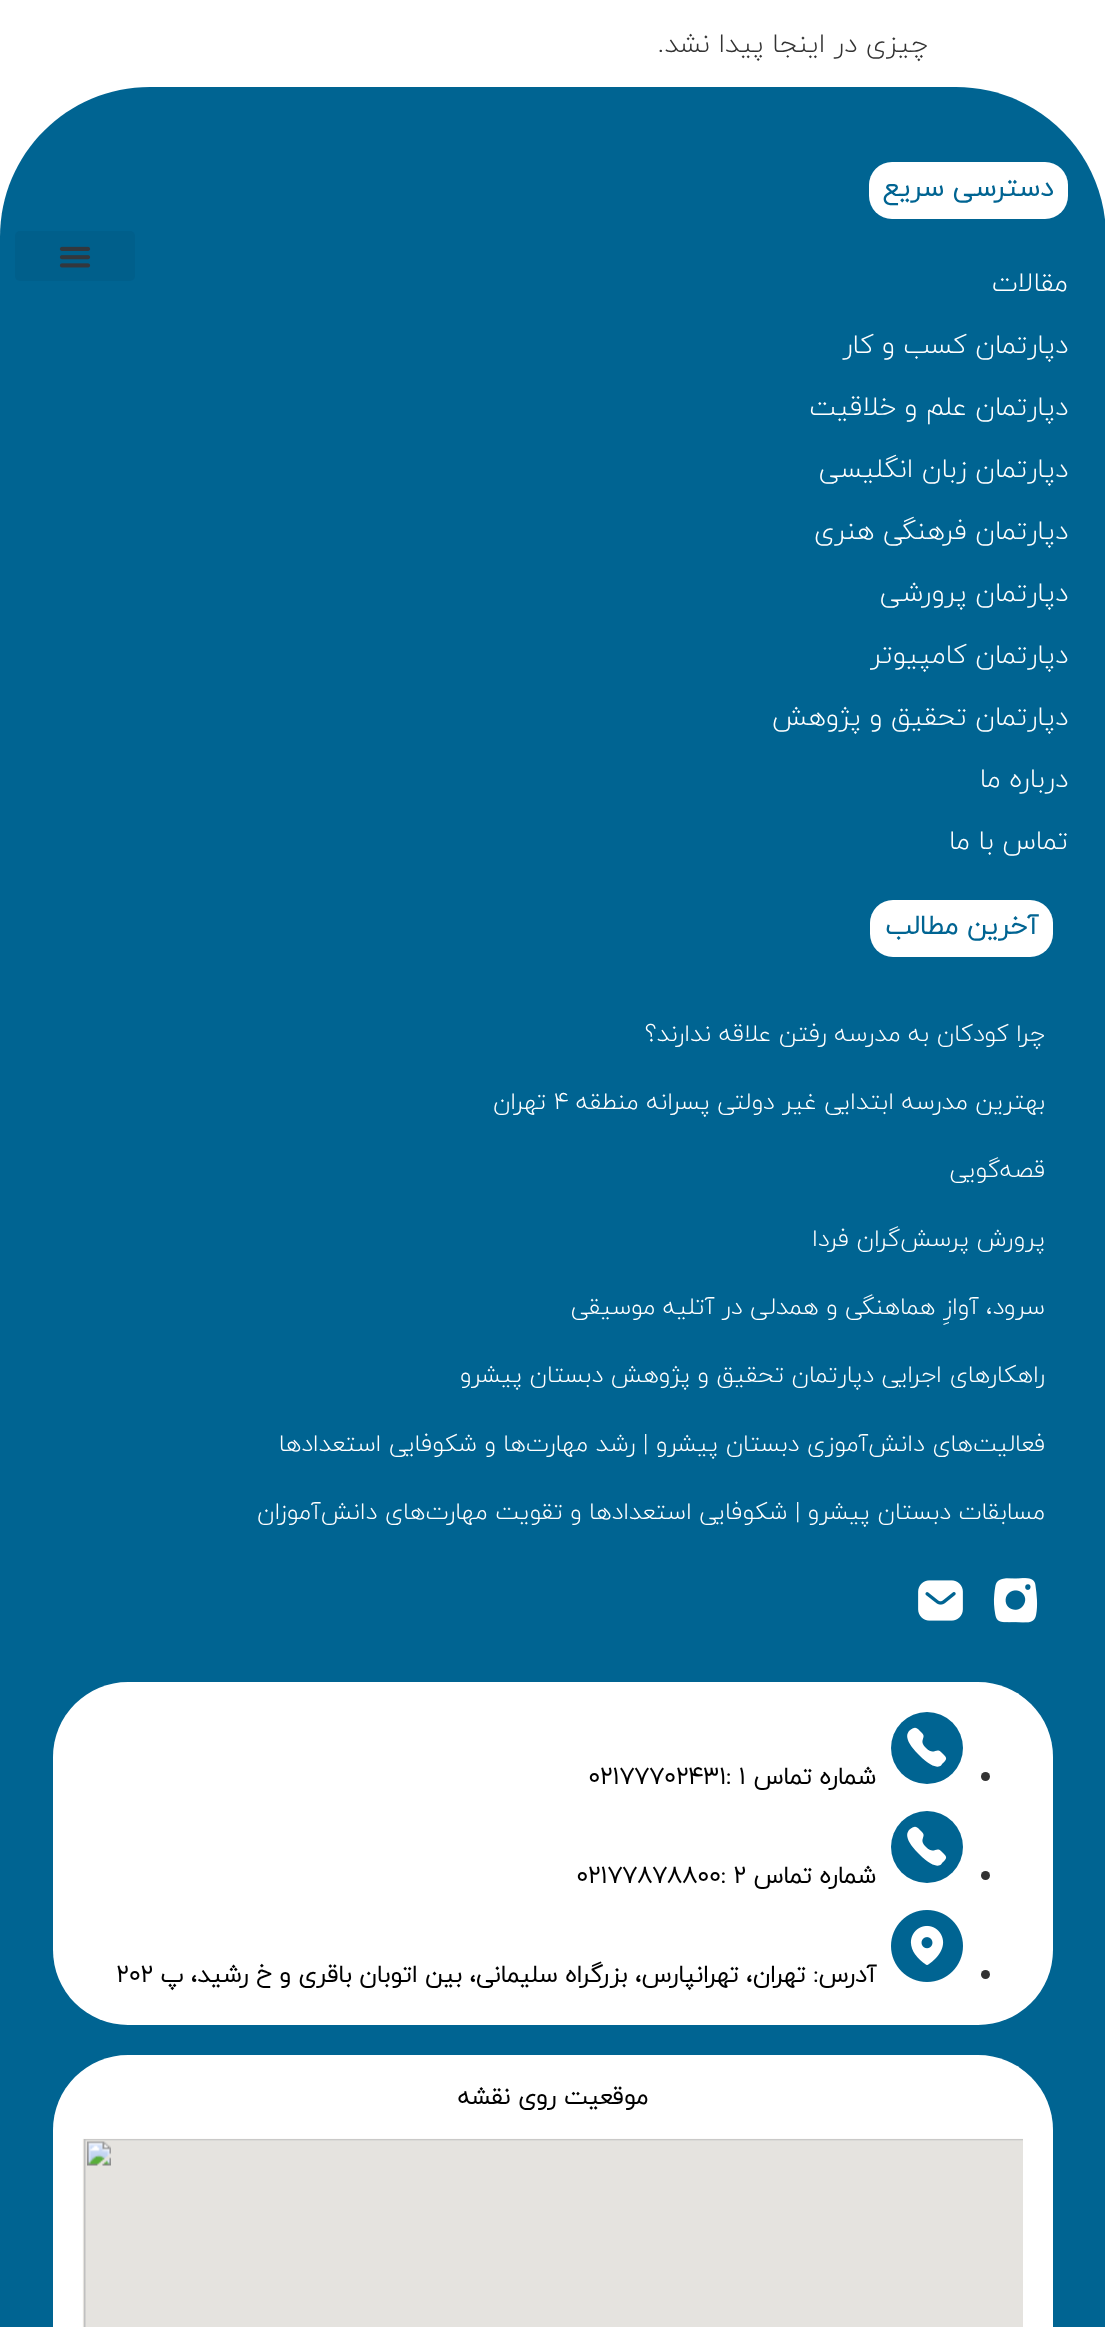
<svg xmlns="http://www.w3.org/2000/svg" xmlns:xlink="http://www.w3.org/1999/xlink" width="1105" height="2327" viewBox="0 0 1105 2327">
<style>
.cls-1{font:300 27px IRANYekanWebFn;direction:rtl;fill:#333333}
.cls-2{font:bold 27px IRANYekanWebFn;direction:rtl;fill:#006492}
.cls-3{font:300 27px IRANYekanWebFn;direction:rtl;fill:#ffffff}
.cls-4{font:300 24px IRANYekanWebFn;direction:rtl;fill:#ffffff}
.cls-5{font:300 24px IRANYekanWebFn;fill:#ffffff}
.cls-6{font:bold 24px IRANYekanWebFn;direction:rtl;fill:#000000}
.cls-7{font:bold 24px IRANYekanWebFn;fill:#000000}
</style>
<rect width="100%" height="100%" fill="#ffffff"/>
<path fill="#006492" d="M150 87H956C1039 87 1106 154 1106 237V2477H0V237C0 154 67 87 150 87Z"/>
<rect fill="#ffffff" x="869" y="162" width="199" height="57" rx="23"/>
<rect fill="#ffffff" x="870" y="900" width="183" height="57" rx="23"/>
<image xlink:href="image0.png" x="993" y="1578" width="45" height="45"/>
<image xlink:href="image1.png" x="918" y="1580" width="45" height="41"/>
<rect fill="#ffffff" x="53" y="1682" width="1000" height="343" rx="75"/>
<circle fill="#333333" cx="985.5" cy="1776.5" r="4.5"/>
<circle fill="#006492" cx="927" cy="1748" r="36"/>
<path fill="#ffffff" fill-rule="evenodd" d="M926 1748C934 1756 936 1747 941 1752C946 1757 949 1758 942 1764C942 1765 937 1773 919 1755C901 1737 909 1732 909 1731C916 1725 917 1728 922 1733C927 1738 918 1740 926 1748Z"/>
<circle fill="#333333" cx="985.5" cy="1875.5" r="4.5"/>
<circle fill="#006492" cx="927" cy="1847" r="36"/>
<path fill="#ffffff" fill-rule="evenodd" d="M926 1847C934 1855 936 1846 941 1851C946 1856 949 1857 942 1863C942 1864 937 1872 919 1854C901 1836 909 1831 909 1830C916 1824 917 1827 922 1832C927 1837 918 1839 926 1847Z"/>
<circle fill="#333333" cx="985.5" cy="1974.5" r="4.5"/>
<image xlink:href="image2.png" x="891" y="1910" width="72" height="72"/>
<rect fill="#ffffff" x="53" y="2055" width="1000" height="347" rx="75"/>
<image xlink:href="image3.png" x="82" y="2138" width="941" height="189"/>
<rect fill="#005f8b" x="15" y="231" width="120" height="50" rx="5"/>
<image xlink:href="image4.png" x="59" y="246" width="32" height="22"/>
<text class="cls-1" x="928" y="52">چیزی در اینجا پیدا نشد.</text>
<text class="cls-2" x="1053" y="196">دسترسی سریع</text>
<text class="cls-3" x="1068" y="291">مقالات</text>
<text class="cls-3" x="1068" y="353">دپارتمان کسب و کار</text>
<text class="cls-3" x="1068" y="415">دپارتمان علم و خلاقیت</text>
<text class="cls-3" x="1068" y="477">دپارتمان زبان انگلیسی</text>
<text class="cls-3" x="1068" y="539">دپارتمان فرهنگی هنری</text>
<text class="cls-3" x="1068" y="601">دپارتمان پرورشی</text>
<text class="cls-3" x="1068" y="663">دپارتمان کامپیوتر</text>
<text class="cls-3" x="1068" y="725">دپارتمان تحقیق و پژوهش</text>
<text class="cls-3" x="1068" y="787">درباره ما</text>
<text class="cls-3" x="1068" y="849">تماس با ما</text>
<text class="cls-2" x="1038" y="934">آخرین مطالب</text>
<text class="cls-4" x="1045" y="1041">چرا کودکان به مدرسه رفتن علاقه ندارند؟</text>
<text class="cls-4" x="1045" y="1109">بهترین مدرسه ابتدایی غیر دولتی پسرانه منطقه</text>
<text class="cls-5" x="554" y="1109">۴</text>
<text class="cls-4" x="546" y="1109">تهران</text>
<text class="cls-4" x="1045" y="1177">قصه‌گویی</text>
<text class="cls-4" x="1045" y="1246">پرورش پرسش‌گران فردا</text>
<text class="cls-4" x="1045" y="1314">سرود، آوازِ هماهنگی و همدلی در آتلیه موسیقی</text>
<text class="cls-4" x="1045" y="1382">راهکارهای اجرایی دپارتمان تحقیق و پژوهش دبستان پیشرو</text>
<text class="cls-4" x="1045" y="1451">فعالیت‌های دانش‌آموزی دبستان پیشرو | رشد مهارت‌ها و شکوفایی استعدادها</text>
<text class="cls-4" x="1045" y="1519">مسابقات دبستان پیشرو | شکوفایی استعدادها و تقویت مهارت‌های دانش‌آموزان</text>
<text class="cls-6" x="876" y="1784">شماره تماس</text>
<text class="cls-7" x="588" y="1784">۰۲۱۷۷۷۰۲۴۳۱: 1</text>
<text class="cls-6" x="876" y="1883">شماره تماس</text>
<text class="cls-7" x="576" y="1883">۰۲۱۷۷۸۷۸۸۰۰: ۲</text>
<text class="cls-6" x="876" y="1982">آدرس: تهران، تهرانپارس، بزرگراه سلیمانی، بین اتوبان باقری و خ رشید، پ</text>
<text class="cls-7" x="116" y="1982">202</text>
<text class="cls-6" x="648" y="2104">موقعیت روی نقشه</text>
</svg>
